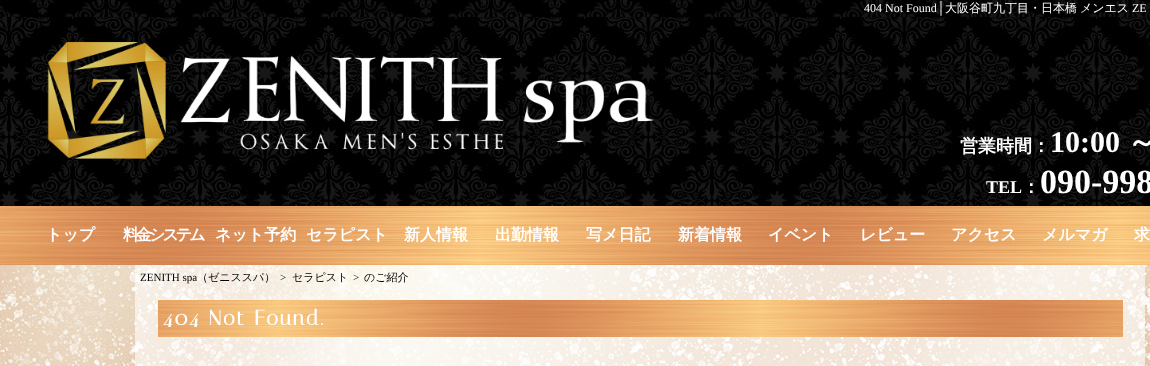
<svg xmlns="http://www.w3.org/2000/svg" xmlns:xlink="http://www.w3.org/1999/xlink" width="1150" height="366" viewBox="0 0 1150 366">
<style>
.cls-1{font:12px Liberation Serif;fill:#ffffff}
.cls-2{font:500 12px WenQuanYi Zen Hei;fill:#ffffff}
.cls-3{font:bold 18px WenQuanYi Zen Hei;fill:#ffffff}
.cls-4{font:bold 30px Liberation Serif;fill:#ffffff}
.cls-5{font:bold 30px WenQuanYi Zen Hei;fill:#ffffff}
.cls-6{font:bold 18px Liberation Serif;fill:#ffffff}
.cls-7{font:bold 34px Liberation Serif;fill:#ffffff}
.cls-8{font:bold 16px WenQuanYi Zen Hei;fill:#ffffff}
.cls-9{font:bold 16px WenQuanYi Zen Hei;letter-spacing:-3px;fill:#ffffff}
.cls-10{font:11px Liberation Serif;fill:#000000}
.cls-11{font:500 11px WenQuanYi Zen Hei;fill:#000000}
.cls-12{font:bold 21px Italiana;letter-spacing:2px;fill:#ffffff}
</style>
<rect width="100%" height="100%" fill="#ffffff"/>
<image xlink:href="image0.png" x="0" y="265" width="1150" height="101"/>
<image xlink:href="image1.png" x="0" y="0" width="1150" height="17"/>
<image xlink:href="image2.png" x="0" y="17" width="1150" height="189"/>
<image xlink:href="image3.png" x="47" y="41" width="607" height="119"/>
<image xlink:href="image4.png" x="0" y="206" width="1150" height="59"/>
<rect fill="#ffffff" fill-opacity="0.6" x="135" y="265" width="1010" height="25"/>
<rect fill="#ffffff" fill-opacity="0.6" x="135" y="290" width="1010" height="76"/>
<image xlink:href="image5.png" x="158" y="300" width="965" height="37"/>
<text class="cls-1" x="864" y="12">404 Not Found│</text>
<text class="cls-2" x="945" y="12">大阪谷町九丁目・日本橋</text>
<text class="cls-2" x="1080" y="12">メンエス</text>
<text class="cls-1" x="1132" y="12">ZE</text>
<text class="cls-3" x="960" y="152">営業時間：</text>
<text class="cls-4" x="1050" y="152">10:00</text>
<text class="cls-5" x="1127" y="152" word-spacing="-1">～</text>
<text class="cls-6" x="986" y="193">TEL</text>
<text class="cls-3" x="1022" y="193">：</text>
<text class="cls-7" x="1040" y="193">090-998</text>
<text class="cls-8" x="46" y="240">トップ</text>
<text class="cls-9" x="123" y="240">料金システム</text>
<text class="cls-8" x="215" y="240">ネット予約</text>
<text class="cls-8" x="306" y="240">セラピスト</text>
<text class="cls-8" x="404" y="240">新人情報</text>
<text class="cls-8" x="495" y="240">出勤情報</text>
<text class="cls-8" x="586" y="240">写メ日記</text>
<text class="cls-8" x="678" y="240">新着情報</text>
<text class="cls-8" x="768" y="240">イベント</text>
<text class="cls-8" x="860" y="240">レビュー</text>
<text class="cls-8" x="951" y="240">アクセス</text>
<text class="cls-8" x="1042" y="240">メルマガ</text>
<text class="cls-8" x="1134" y="240">求</text>
<text class="cls-10" x="140" y="281">ZENITH spa</text>
<text class="cls-11" x="197" y="281">（ゼニススパ）</text>
<text class="cls-10" x="280" y="281">&gt;</text>
<text class="cls-11" x="292" y="281">セラピスト</text>
<text class="cls-10" x="353" y="281">&gt;</text>
<text class="cls-11" x="364" y="281">のご紹介</text>
<text class="cls-12" x="163" y="325">404 Not Found.</text>
</svg>
